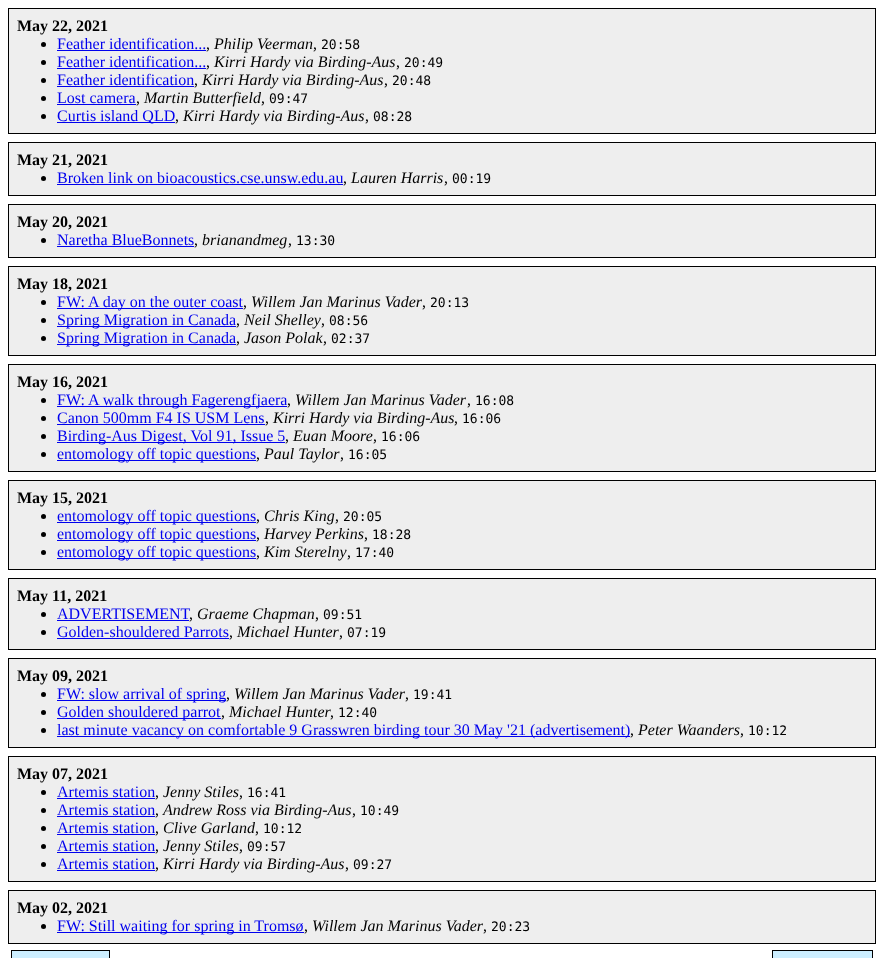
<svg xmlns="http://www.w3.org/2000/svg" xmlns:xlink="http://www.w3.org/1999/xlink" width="884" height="958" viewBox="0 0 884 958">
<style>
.cls-1{font:bold 16px Liberation Serif;fill:#000000}
.cls-2{font:16px Liberation Serif;fill:#0000ee}
.cls-3{font:italic 16px Liberation Serif;fill:#000000}
.cls-4{font:13px DejaVu Sans Mono;fill:#000000}
.cls-5{font:16px Liberation Serif;fill:#000000}
</style>
<rect width="100%" height="100%" fill="#ffffff"/>
<rect fill="#eeeeee" stroke="#000000" x="8.5" y="8.5" width="867" height="125"/>
<circle fill="#000000" cx="43.5" cy="44.5" r="2.5"/>
<rect fill="#0000ee" x="57" y="50" width="149" height="1"/>
<circle fill="#000000" cx="43.5" cy="62.5" r="2.5"/>
<rect fill="#0000ee" x="57" y="68" width="149" height="1"/>
<circle fill="#000000" cx="43.5" cy="80.5" r="2.5"/>
<rect fill="#0000ee" x="57" y="86" width="137" height="1"/>
<circle fill="#000000" cx="43.5" cy="98.5" r="2.5"/>
<rect fill="#0000ee" x="57" y="104" width="79" height="1"/>
<circle fill="#000000" cx="43.5" cy="116.5" r="2.5"/>
<rect fill="#0000ee" x="57" y="122" width="118" height="1"/>
<rect fill="#eeeeee" stroke="#000000" x="8.5" y="142.5" width="867" height="53"/>
<circle fill="#000000" cx="43.5" cy="178.5" r="2.5"/>
<rect fill="#0000ee" x="57" y="184" width="286" height="1"/>
<rect fill="#eeeeee" stroke="#000000" x="8.5" y="204.5" width="867" height="53"/>
<circle fill="#000000" cx="43.5" cy="240.5" r="2.5"/>
<rect fill="#0000ee" x="57" y="246" width="137" height="1"/>
<rect fill="#eeeeee" stroke="#000000" x="8.5" y="266.5" width="867" height="89"/>
<circle fill="#000000" cx="43.5" cy="302.5" r="2.5"/>
<rect fill="#0000ee" x="57" y="308" width="186" height="1"/>
<circle fill="#000000" cx="43.5" cy="320.5" r="2.5"/>
<rect fill="#0000ee" x="57" y="326" width="179" height="1"/>
<circle fill="#000000" cx="43.5" cy="338.5" r="2.5"/>
<rect fill="#0000ee" x="57" y="344" width="179" height="1"/>
<rect fill="#eeeeee" stroke="#000000" x="8.5" y="364.5" width="867" height="107"/>
<circle fill="#000000" cx="43.5" cy="400.5" r="2.5"/>
<rect fill="#0000ee" x="57" y="406" width="230" height="1"/>
<circle fill="#000000" cx="43.5" cy="418.5" r="2.5"/>
<rect fill="#0000ee" x="57" y="424" width="208" height="1"/>
<circle fill="#000000" cx="43.5" cy="436.5" r="2.5"/>
<rect fill="#0000ee" x="57" y="442" width="228" height="1"/>
<circle fill="#000000" cx="43.5" cy="454.5" r="2.5"/>
<rect fill="#0000ee" x="57" y="460" width="199" height="1"/>
<rect fill="#eeeeee" stroke="#000000" x="8.5" y="480.5" width="867" height="89"/>
<circle fill="#000000" cx="43.5" cy="516.5" r="2.5"/>
<rect fill="#0000ee" x="57" y="522" width="199" height="1"/>
<circle fill="#000000" cx="43.5" cy="534.5" r="2.5"/>
<rect fill="#0000ee" x="57" y="540" width="199" height="1"/>
<circle fill="#000000" cx="43.5" cy="552.5" r="2.5"/>
<rect fill="#0000ee" x="57" y="558" width="199" height="1"/>
<rect fill="#eeeeee" stroke="#000000" x="8.5" y="578.5" width="867" height="71"/>
<circle fill="#000000" cx="43.5" cy="614.5" r="2.5"/>
<rect fill="#0000ee" x="57" y="620" width="132" height="1"/>
<circle fill="#000000" cx="43.5" cy="632.5" r="2.5"/>
<rect fill="#0000ee" x="57" y="638" width="172" height="1"/>
<rect fill="#eeeeee" stroke="#000000" x="8.5" y="658.5" width="867" height="89"/>
<circle fill="#000000" cx="43.5" cy="694.5" r="2.5"/>
<rect fill="#0000ee" x="57" y="700" width="169" height="1"/>
<circle fill="#000000" cx="43.5" cy="712.5" r="2.5"/>
<rect fill="#0000ee" x="57" y="718" width="164" height="1"/>
<circle fill="#000000" cx="43.5" cy="730.5" r="2.5"/>
<rect fill="#0000ee" x="57" y="736" width="573" height="1"/>
<rect fill="#eeeeee" stroke="#000000" x="8.5" y="756.5" width="867" height="125"/>
<circle fill="#000000" cx="43.5" cy="792.5" r="2.5"/>
<rect fill="#0000ee" x="57" y="798" width="98" height="1"/>
<circle fill="#000000" cx="43.5" cy="810.5" r="2.5"/>
<rect fill="#0000ee" x="57" y="816" width="98" height="1"/>
<circle fill="#000000" cx="43.5" cy="828.5" r="2.5"/>
<rect fill="#0000ee" x="57" y="834" width="98" height="1"/>
<circle fill="#000000" cx="43.5" cy="846.5" r="2.5"/>
<rect fill="#0000ee" x="57" y="852" width="98" height="1"/>
<circle fill="#000000" cx="43.5" cy="864.5" r="2.5"/>
<rect fill="#0000ee" x="57" y="870" width="98" height="1"/>
<rect fill="#eeeeee" stroke="#000000" x="8.5" y="890.5" width="867" height="53"/>
<circle fill="#000000" cx="43.5" cy="926.5" r="2.5"/>
<rect fill="#0000ee" x="57" y="932" width="247" height="1"/>
<rect fill="#000000" x="11" y="950" width="99" height="1"/>
<rect fill="#cceeff" x="11" y="951" width="99" height="7"/>
<rect fill="#000000" x="11" y="950" width="1" height="8"/>
<rect fill="#000000" x="109" y="950" width="1" height="8"/>
<rect fill="#000000" x="772" y="950" width="101" height="1"/>
<rect fill="#cceeff" x="772" y="951" width="101" height="7"/>
<rect fill="#000000" x="772" y="950" width="1" height="8"/>
<rect fill="#000000" x="872" y="950" width="1" height="8"/>
<text class="cls-1" x="17" y="31">May 22, 2021</text>
<text class="cls-2" x="57" y="49">Feather identification...</text>
<text class="cls-3" x="214" y="49">Philip Veerman</text>
<text class="cls-4" x="321" y="49">20:58</text>
<text class="cls-5" x="206" y="49">,</text>
<text class="cls-5" x="313" y="49">,</text>
<text class="cls-2" x="57" y="67">Feather identification...</text>
<text class="cls-3" x="214" y="67">Kirri Hardy via Birding-Aus</text>
<text class="cls-4" x="404" y="67">20:49</text>
<text class="cls-5" x="206" y="67">,</text>
<text class="cls-5" x="396" y="67">,</text>
<text class="cls-2" x="57" y="85">Feather identification</text>
<text class="cls-3" x="202" y="85">Kirri Hardy via Birding-Aus</text>
<text class="cls-4" x="392" y="85">20:48</text>
<text class="cls-5" x="194" y="85">,</text>
<text class="cls-5" x="384" y="85">,</text>
<text class="cls-2" x="57" y="103">Lost camera</text>
<text class="cls-3" x="144" y="103">Martin Butterfield</text>
<text class="cls-4" x="269" y="103">09:47</text>
<text class="cls-5" x="136" y="103">,</text>
<text class="cls-5" x="261" y="103">,</text>
<text class="cls-2" x="57" y="121">Curtis island QLD</text>
<text class="cls-3" x="183" y="121">Kirri Hardy via Birding-Aus</text>
<text class="cls-4" x="373" y="121">08:28</text>
<text class="cls-5" x="175" y="121">,</text>
<text class="cls-5" x="365" y="121">,</text>
<text class="cls-1" x="17" y="165">May 21, 2021</text>
<text class="cls-2" x="57" y="183">Broken link on bioacoustics.cse.unsw.edu.au</text>
<text class="cls-3" x="351" y="183">Lauren Harris</text>
<text class="cls-4" x="452" y="183">00:19</text>
<text class="cls-5" x="343" y="183">,</text>
<text class="cls-5" x="444" y="183">,</text>
<text class="cls-1" x="17" y="227">May 20, 2021</text>
<text class="cls-2" x="57" y="245">Naretha BlueBonnets</text>
<text class="cls-3" x="202" y="245">brianandmeg</text>
<text class="cls-4" x="296" y="245">13:30</text>
<text class="cls-5" x="194" y="245">,</text>
<text class="cls-5" x="288" y="245">,</text>
<text class="cls-1" x="17" y="289">May 18, 2021</text>
<text class="cls-2" x="57" y="307">FW: A day on the outer coast</text>
<text class="cls-3" x="251" y="307">Willem Jan Marinus Vader</text>
<text class="cls-4" x="430" y="307">20:13</text>
<text class="cls-5" x="243" y="307">,</text>
<text class="cls-5" x="422" y="307">,</text>
<text class="cls-2" x="57" y="325">Spring Migration in Canada</text>
<text class="cls-3" x="244" y="325">Neil Shelley</text>
<text class="cls-4" x="329" y="325">08:56</text>
<text class="cls-5" x="236" y="325">,</text>
<text class="cls-5" x="321" y="325">,</text>
<text class="cls-2" x="57" y="343">Spring Migration in Canada</text>
<text class="cls-3" x="244" y="343">Jason Polak</text>
<text class="cls-4" x="331" y="343">02:37</text>
<text class="cls-5" x="236" y="343">,</text>
<text class="cls-5" x="323" y="343">,</text>
<text class="cls-1" x="17" y="387">May 16, 2021</text>
<text class="cls-2" x="57" y="405">FW: A walk through Fagerengfjaera</text>
<text class="cls-3" x="295" y="405">Willem Jan Marinus Vader</text>
<text class="cls-4" x="475" y="405">16:08</text>
<text class="cls-5" x="287" y="405">,</text>
<text class="cls-5" x="467" y="405">,</text>
<text class="cls-2" x="57" y="423">Canon 500mm F4 IS USM Lens</text>
<text class="cls-3" x="273" y="423">Kirri Hardy via Birding-Aus</text>
<text class="cls-4" x="462" y="423">16:06</text>
<text class="cls-5" x="265" y="423">,</text>
<text class="cls-5" x="454" y="423">,</text>
<text class="cls-2" x="57" y="441">Birding-Aus Digest, Vol 91, Issue 5</text>
<text class="cls-3" x="293" y="441">Euan Moore</text>
<text class="cls-4" x="381" y="441">16:06</text>
<text class="cls-5" x="285" y="441">,</text>
<text class="cls-5" x="373" y="441">,</text>
<text class="cls-2" x="57" y="459">entomology off topic questions</text>
<text class="cls-3" x="264" y="459">Paul Taylor</text>
<text class="cls-4" x="348" y="459">16:05</text>
<text class="cls-5" x="256" y="459">,</text>
<text class="cls-5" x="340" y="459">,</text>
<text class="cls-1" x="17" y="503">May 15, 2021</text>
<text class="cls-2" x="57" y="521">entomology off topic questions</text>
<text class="cls-3" x="264" y="521">Chris King</text>
<text class="cls-4" x="343" y="521">20:05</text>
<text class="cls-5" x="256" y="521">,</text>
<text class="cls-5" x="335" y="521">,</text>
<text class="cls-2" x="57" y="539">entomology off topic questions</text>
<text class="cls-3" x="264" y="539">Harvey Perkins</text>
<text class="cls-4" x="372" y="539">18:28</text>
<text class="cls-5" x="256" y="539">,</text>
<text class="cls-5" x="364" y="539">,</text>
<text class="cls-2" x="57" y="557">entomology off topic questions</text>
<text class="cls-3" x="264" y="557">Kim Sterelny</text>
<text class="cls-4" x="355" y="557">17:40</text>
<text class="cls-5" x="256" y="557">,</text>
<text class="cls-5" x="347" y="557">,</text>
<text class="cls-1" x="17" y="601">May 11, 2021</text>
<text class="cls-2" x="57" y="619">ADVERTISEMENT</text>
<text class="cls-3" x="197" y="619">Graeme Chapman</text>
<text class="cls-4" x="323" y="619">09:51</text>
<text class="cls-5" x="189" y="619">,</text>
<text class="cls-5" x="315" y="619">,</text>
<text class="cls-2" x="57" y="637">Golden-shouldered Parrots</text>
<text class="cls-3" x="237" y="637">Michael Hunter</text>
<text class="cls-4" x="347" y="637">07:19</text>
<text class="cls-5" x="229" y="637">,</text>
<text class="cls-5" x="339" y="637">,</text>
<text class="cls-1" x="17" y="681">May 09, 2021</text>
<text class="cls-2" x="57" y="699">FW: slow arrival of spring</text>
<text class="cls-3" x="234" y="699">Willem Jan Marinus Vader</text>
<text class="cls-4" x="413" y="699">19:41</text>
<text class="cls-5" x="226" y="699">,</text>
<text class="cls-5" x="405" y="699">,</text>
<text class="cls-2" x="57" y="717">Golden shouldered parrot</text>
<text class="cls-3" x="229" y="717">Michael Hunter</text>
<text class="cls-4" x="338" y="717">12:40</text>
<text class="cls-5" x="221" y="717">,</text>
<text class="cls-5" x="330" y="717">,</text>
<text class="cls-2" x="57" y="735">last minute vacancy on comfortable 9 Grasswren birding tour 30 May '21 (advertisement)</text>
<text class="cls-3" x="638" y="735">Peter Waanders</text>
<text class="cls-4" x="748" y="735">10:12</text>
<text class="cls-5" x="630" y="735">,</text>
<text class="cls-5" x="740" y="735">,</text>
<text class="cls-1" x="17" y="779">May 07, 2021</text>
<text class="cls-2" x="57" y="797">Artemis station</text>
<text class="cls-3" x="163" y="797">Jenny Stiles</text>
<text class="cls-4" x="247" y="797">16:41</text>
<text class="cls-5" x="155" y="797">,</text>
<text class="cls-5" x="239" y="797">,</text>
<text class="cls-2" x="57" y="815">Artemis station</text>
<text class="cls-3" x="163" y="815">Andrew Ross via Birding-Aus</text>
<text class="cls-4" x="360" y="815">10:49</text>
<text class="cls-5" x="155" y="815">,</text>
<text class="cls-5" x="352" y="815">,</text>
<text class="cls-2" x="57" y="833">Artemis station</text>
<text class="cls-3" x="163" y="833">Clive Garland</text>
<text class="cls-4" x="263" y="833">10:12</text>
<text class="cls-5" x="155" y="833">,</text>
<text class="cls-5" x="255" y="833">,</text>
<text class="cls-2" x="57" y="851">Artemis station</text>
<text class="cls-3" x="163" y="851">Jenny Stiles</text>
<text class="cls-4" x="247" y="851">09:57</text>
<text class="cls-5" x="155" y="851">,</text>
<text class="cls-5" x="239" y="851">,</text>
<text class="cls-2" x="57" y="869">Artemis station</text>
<text class="cls-3" x="163" y="869">Kirri Hardy via Birding-Aus</text>
<text class="cls-4" x="353" y="869">09:27</text>
<text class="cls-5" x="155" y="869">,</text>
<text class="cls-5" x="345" y="869">,</text>
<text class="cls-1" x="17" y="913">May 02, 2021</text>
<text class="cls-2" x="57" y="931">FW: Still waiting for spring in Tromsø</text>
<text class="cls-3" x="312" y="931">Willem Jan Marinus Vader</text>
<text class="cls-4" x="491" y="931">20:23</text>
<text class="cls-5" x="304" y="931">,</text>
<text class="cls-5" x="483" y="931">,</text>
</svg>
